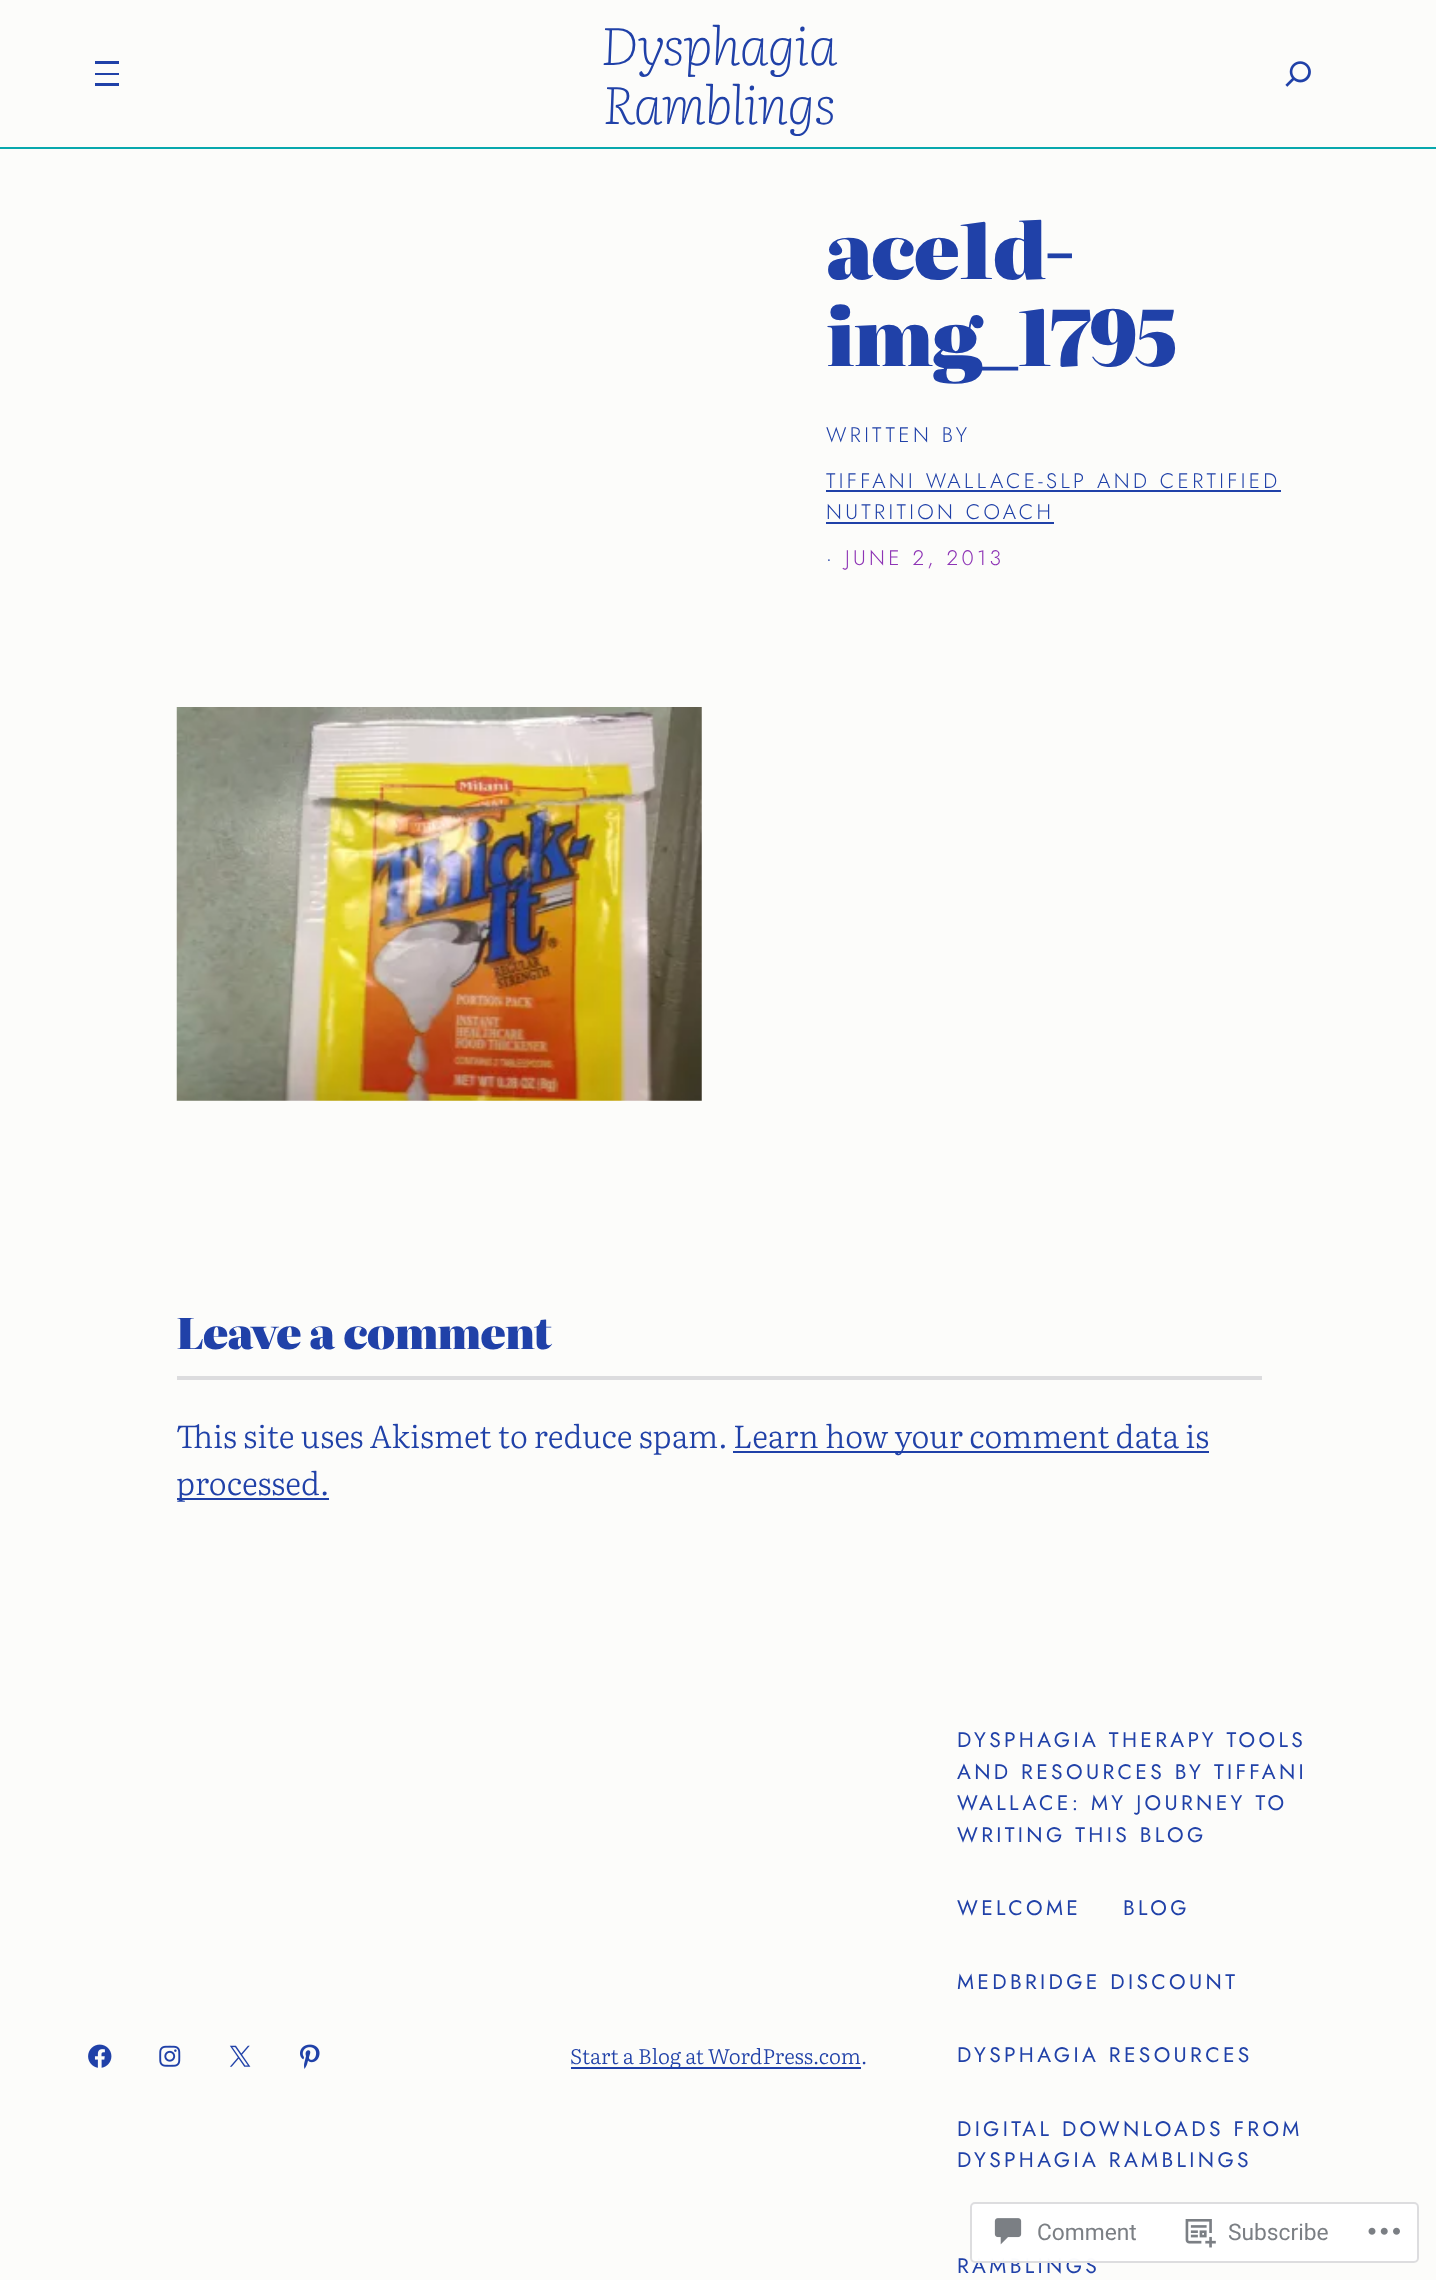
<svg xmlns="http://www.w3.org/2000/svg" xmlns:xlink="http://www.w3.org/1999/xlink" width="1436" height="2280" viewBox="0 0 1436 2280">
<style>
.cls-1{font:italic 200 52.5px Literata;letter-spacing:-1px;fill:#2041a8}
.cls-2{font:900 77px Literata;letter-spacing:-1.5px;fill:#2041a8}
.cls-3{font:300 21px Jost;letter-spacing:3.35px;fill:#2041a8}
.cls-4{font:300 21px Jost;fill:#2041a8}
.cls-5{font:300 21px Jost;letter-spacing:3.35px;fill:#8e34b5}
.cls-6{font:900 42.5px Literata;letter-spacing:-0.8px;fill:#2041a8}
.cls-7{font:300 31.6px Literata;fill:#2041a8}
.cls-8{font:300 21px 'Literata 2';fill:#2041a8}
.cls-9{font:21px Jost;letter-spacing:3.35px;fill:#2041a8}
.cls-10{font:22.75px Roboto;fill:#7b7f84}
</style>
<rect width="100%" height="100%" fill="#fcfcfa"/>
<rect fill="#08a8ad" x="0" y="147" width="1436" height="2"/>
<rect fill="#2041a8" x="95" y="61" width="24" height="3"/>
<rect fill="#2041a8" x="95" y="73" width="24" height="2"/>
<rect fill="#2041a8" x="95" y="83" width="24" height="3"/>
<image xlink:href="image0.png" x="1285" y="61" width="26" height="26"/>
<rect fill="#2041a8" x="826" y="490" width="455" height="2"/>
<rect fill="#2041a8" x="826" y="522" width="228" height="2"/>
<image xlink:href="image1.png" x="176" y="707" width="526" height="394"/>
<rect fill="#dcdcde" x="177" y="1376" width="1085" height="4"/>
<rect fill="#2041a8" x="733" y="1451" width="476" height="2"/>
<rect fill="#2041a8" x="177" y="1498" width="152" height="2"/>
<image xlink:href="image2.png" x="88" y="2044" width="24" height="24"/>
<image xlink:href="image3.png" x="159" y="2045" width="22" height="22"/>
<image xlink:href="image4.png" x="229" y="2045" width="22" height="22"/>
<image xlink:href="image5.png" x="300" y="2044" width="20" height="25"/>
<rect fill="#2041a8" x="571" y="2067" width="290" height="2"/>
<text class="cls-1" x="601" y="65">Dysphagia</text>
<text class="cls-1" x="603" y="124">Ramblings</text>
<text class="cls-2"><tspan x="826" y="279">ace1d-</tspan><tspan x="826" y="366">img_1795</tspan></text>
<text class="cls-3" x="826" y="442">WRITTEN BY</text>
<text class="cls-3"><tspan x="826" y="488">TIFFANI WALLACE-SLP AND CERTIFIED</tspan><tspan x="826" y="519">NUTRITION COACH</tspan></text>
<text class="cls-4" x="826" y="565">·</text>
<text class="cls-5" x="845" y="565">JUNE 2, 2013</text>
<text class="cls-6" x="176" y="1349">Leave a comment</text>
<text class="cls-7" x="176" y="1448">This site uses Akismet to reduce spam.</text>
<text class="cls-7" x="733" y="1448">Learn how your comment data is</text>
<text class="cls-7" x="176" y="1495">processed.</text>
<text class="cls-8" x="570" y="2064">Start a Blog at WordPress.com</text>
<text class="cls-8" x="861" y="2064">.</text>
<text class="cls-9"><tspan x="957" y="1747">DYSPHAGIA THERAPY TOOLS</tspan><tspan x="957" y="1779">AND RESOURCES BY TIFFANI</tspan><tspan x="957" y="1810">WALLACE: MY JOURNEY TO</tspan><tspan x="957" y="1842">WRITING THIS BLOG</tspan></text>
<text class="cls-9" x="957" y="1915">WELCOME</text>
<text class="cls-9" x="1123" y="1915">BLOG</text>
<text class="cls-9" x="957" y="1989">MEDBRIDGE DISCOUNT</text>
<text class="cls-9" x="957" y="2062">DYSPHAGIA RESOURCES</text>
<text class="cls-9"><tspan x="957" y="2136">DIGITAL DOWNLOADS FROM</tspan><tspan x="957" y="2167">DYSPHAGIA RAMBLINGS</tspan></text>
<text class="cls-9" x="957" y="2273">RAMBLINGS</text>
<rect fill="#ffffff" fill-opacity="0.98" x="970" y="2202" width="449" height="61" rx="5"/>
<rect fill="none" stroke="#dcdcde" stroke-opacity="0.98" stroke-width="2" x="971" y="2203" width="447" height="59" rx="4"/>
<image xlink:href="image6.png" x="994" y="2218" width="28" height="27"/>
<text class="cls-10" x="1037" y="2240">Comment</text>
<image xlink:href="image7.png" x="1185" y="2219" width="31" height="29"/>
<text class="cls-10" x="1228" y="2240">Subscribe</text>
<image xlink:href="image8.png" x="1368" y="2227" width="32" height="8"/>
</svg>
